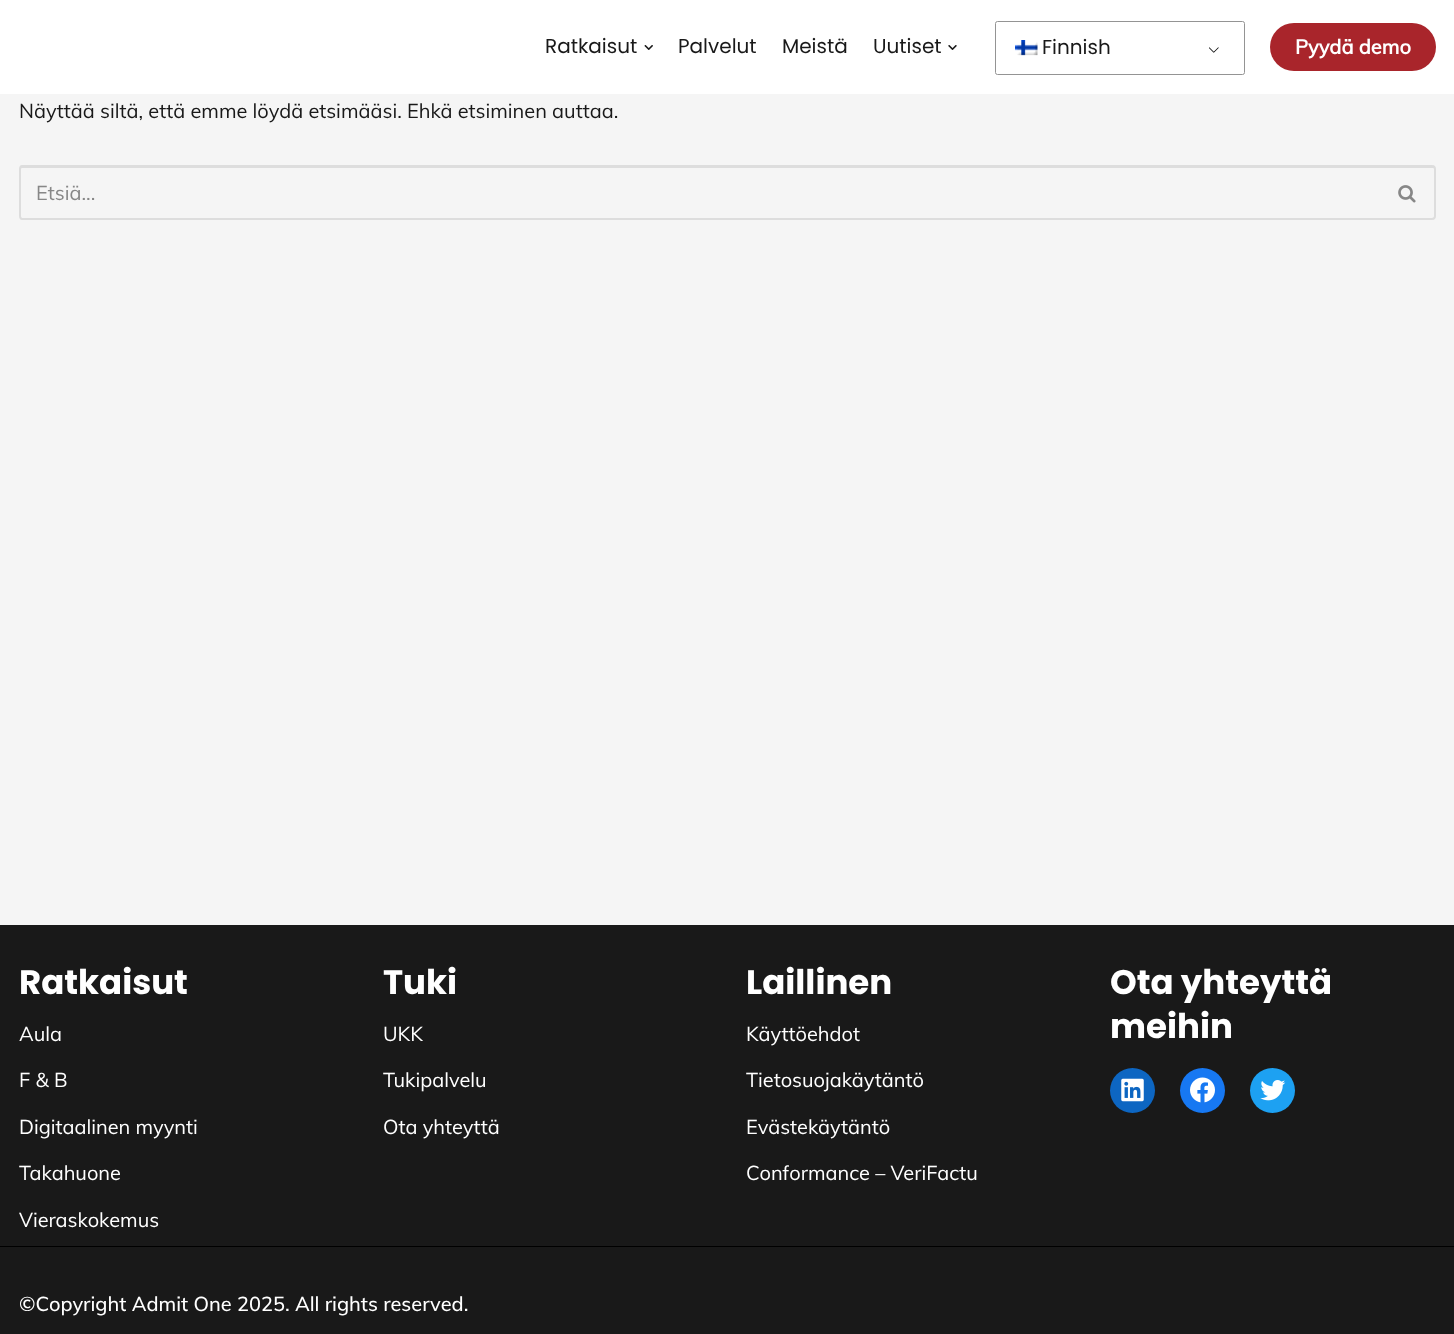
<svg xmlns="http://www.w3.org/2000/svg" xmlns:xlink="http://www.w3.org/1999/xlink" width="1454" height="1334" viewBox="0 0 1454 1334">
<style>
.cls-1{font:20px Poppins;fill:#191919}
.cls-2{font:bold 20px Muli;fill:#ffffff}
.cls-3{font:20px Muli;fill:#191919}
.cls-4{font:20px Muli;fill:#878787}
.cls-5{font:bold 34px Poppins;fill:#ffffff}
.cls-6{font:20px Muli;fill:#ffffff}
.cls-7{font:500 20px Muli;fill:#ffffff}
</style>
<rect width="100%" height="100%" fill="#f5f5f5"/>
<rect fill="#ffffff" x="0" y="0" width="1454" height="94"/>
<image xlink:href="image0.png" x="644" y="45" width="9" height="5"/>
<image xlink:href="image1.png" x="948" y="45" width="9" height="5"/>
<image xlink:href="image2.png" x="1209" y="47" width="10" height="6"/>
<rect fill="none" stroke="#949494" x="995.5" y="21.5" width="249" height="53" rx="2"/>
<image xlink:href="image3.png" x="1015" y="40" width="23" height="16"/>
<rect fill="#a9252b" x="1270" y="23" width="166" height="48" rx="24"/>
<path fill="#dddddd" fill-rule="evenodd" d="M22 165H1380V220H22C20 220 19 218 19 216V169C19 167 20 165 22 165ZM22 168H1380V218H22C22 218 21 217 21 216V169C21 168 22 168 22 168Z"/>
<path fill="#dddddd" fill-rule="evenodd" d="M1380 165H1432C1435 165 1436 167 1436 169V216C1436 218 1435 220 1432 220H1380ZM1380 168H1432C1433 168 1434 168 1434 169V216C1434 217 1433 218 1432 218H1380Z"/>
<image xlink:href="image4.png" x="1398" y="185" width="18" height="18"/>
<rect fill="#191919" x="0" y="925" width="1454" height="321"/>
<circle fill="#0d66c2" cx="1132.5" cy="1090.5" r="22.5"/>
<image xlink:href="image5.png" x="1121" y="1078" width="23" height="24"/>
<circle fill="#1778f2" cx="1202.5" cy="1090.5" r="22.5"/>
<image xlink:href="image6.png" x="1190" y="1077" width="25" height="26"/>
<circle fill="#1da1f2" cx="1272.5" cy="1090.5" r="22.5"/>
<image xlink:href="image7.png" x="1260" y="1080" width="26" height="21"/>
<rect fill="#191919" x="0" y="1247" width="1454" height="87"/>
<rect fill="#000000" x="0" y="1246" width="1454" height="1"/>
<text class="cls-1" x="545" y="53">Ratkaisut</text>
<text class="cls-1" x="678" y="53">Palvelut</text>
<text class="cls-1" x="782" y="53">Meistä</text>
<text class="cls-1" x="873" y="53">Uutiset</text>
<text class="cls-1" x="1042" y="54">Finnish</text>
<text class="cls-2" x="1295" y="54">Pyydä demo</text>
<text class="cls-3" x="19" y="118">Näyttää siltä, että emme löydä etsimääsi. Ehkä etsiminen auttaa.</text>
<text class="cls-4" x="36" y="200">Etsiä...</text>
<text class="cls-5" x="19" y="994">Ratkaisut</text>
<text class="cls-6" x="19" y="1041">Aula</text>
<text class="cls-6" x="19" y="1087">F &amp; B</text>
<text class="cls-6" x="19" y="1134">Digitaalinen myynti</text>
<text class="cls-6" x="19" y="1180">Takahuone</text>
<text class="cls-6" x="19" y="1227">Vieraskokemus</text>
<text class="cls-5" x="383" y="994">Tuki</text>
<text class="cls-6" x="383" y="1041">UKK</text>
<text class="cls-6" x="383" y="1087">Tukipalvelu</text>
<text class="cls-6" x="383" y="1134">Ota yhteyttä</text>
<text class="cls-5" x="746" y="994">Laillinen</text>
<text class="cls-6" x="746" y="1041">Käyttöehdot</text>
<text class="cls-6" x="746" y="1087">Tietosuojakäytäntö</text>
<text class="cls-6" x="746" y="1134">Evästekäytäntö</text>
<text class="cls-6" x="746" y="1180">Conformance – VeriFactu</text>
<text class="cls-5"><tspan x="1110" y="994">Ota yhteyttä</tspan><tspan x="1110" y="1038">meihin</tspan></text>
<text class="cls-7" x="19" y="1311">©Copyright Admit One 2025. All rights reserved.</text>
</svg>
